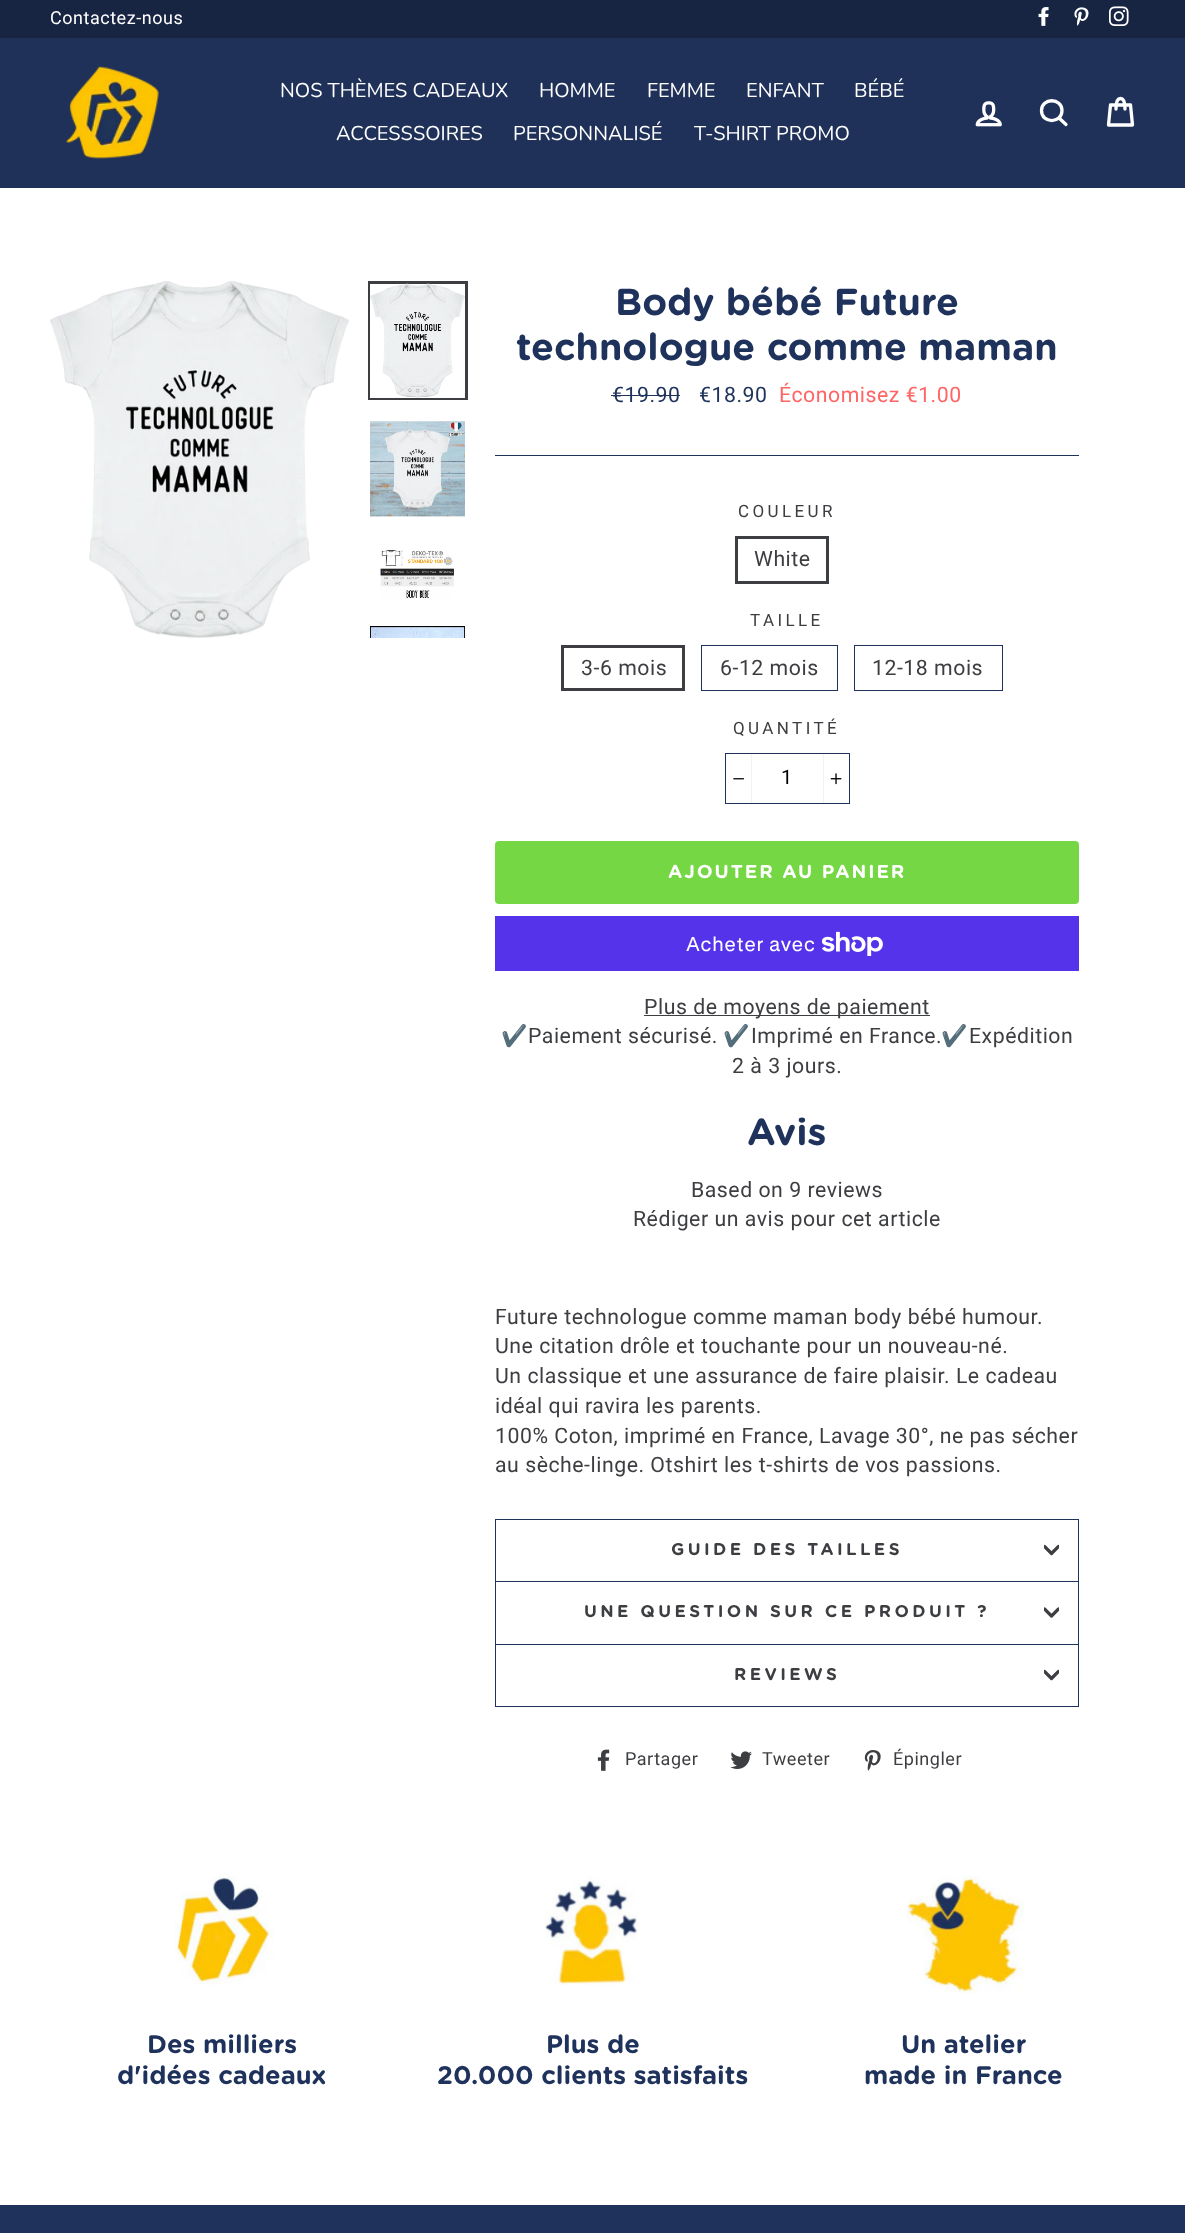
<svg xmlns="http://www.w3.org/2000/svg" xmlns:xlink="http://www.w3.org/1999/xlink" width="1185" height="2233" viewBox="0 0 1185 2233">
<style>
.cls-1{font:18px Roboto;letter-spacing:0.53px;fill:#ffffff}
.cls-2{font:20px Nunito;fill:#ffffff}
.cls-3{font:bold 37.6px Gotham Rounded;fill:#1e325b}
.cls-4{font:21.25px Roboto;letter-spacing:0.53px;fill:#1e325b}
.cls-5{font:21.25px Roboto;letter-spacing:0.53px;fill:#ff6565}
.cls-6{font:17px Roboto;letter-spacing:3.4px;fill:#3d3e41}
.cls-7{font:21.25px Roboto;letter-spacing:0.53px;fill:#3d3e41}
.cls-8{font:20px Roboto;fill:#000000}
.cls-9{font:bold 18.75px Gotham Rounded;letter-spacing:1.9px;fill:#ffffff}
.cls-10{font:20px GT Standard;letter-spacing:0.53px;fill:#ffffff}
.cls-11{font:21.25px Noto Color Emoji;letter-spacing:0.53px;fill:#3d3e41}
.cls-12{font:bold 17px Gotham Rounded;letter-spacing:3.4px;fill:#3d3e41}
.cls-13{font:18px Roboto;letter-spacing:0.53px;fill:#3d3e41}
.cls-14{font:bold 25.5px Gotham Rounded;fill:#1e325b}
</style>
<defs>
<clipPath id="clip1"><rect x="1044" y="1543" width="15" height="15"/></clipPath>
<clipPath id="clip2"><rect x="1044" y="1605" width="15" height="15"/></clipPath>
<clipPath id="clip3"><rect x="1044" y="1668" width="15" height="15"/></clipPath>
</defs>
<rect width="100%" height="100%" fill="#ffffff"/>
<rect fill="#172442" x="0" y="0" width="1185" height="38"/>
<image xlink:href="image0.png" x="1038" y="7" width="11" height="19"/>
<image xlink:href="image1.png" x="1074" y="7" width="15" height="19"/>
<image xlink:href="image2.png" x="1109" y="6" width="20" height="20"/>
<rect fill="#203159" x="0" y="38" width="1185" height="150"/>
<image xlink:href="image3.png" x="66" y="66" width="93" height="93"/>
<image xlink:href="image4.png" x="975" y="101" width="27" height="26"/>
<path fill="none" stroke="#ffffff" stroke-width="3.3" stroke-linecap="round" stroke-linejoin="round" d="M1062 110.5C1062 124 1041.5 124 1041.5 110.5C1041.5 97.5 1062 97.5 1062 110.5ZM1066 124.5L1059 118"/>
<path fill="none" stroke="#ffffff" stroke-width="3.3" stroke-linecap="round" stroke-linejoin="round" d="M1116 109C1116 100.5 1118 98.5 1120.5 98.5C1123 98.5 1125 100.5 1125 109M1110.5 105H1130.5L1132.5 125H1108.5Z"/>
<image xlink:href="image5.png" x="50" y="281" width="299" height="357"/>
<rect fill="none" stroke="#3d3e41" stroke-width="3" x="369.5" y="282.5" width="97" height="116"/>
<rect fill="#ffffff" x="370" y="284" width="95" height="114"/>
<image xlink:href="image6.png" x="370" y="283" width="95" height="115"/>
<image xlink:href="image7.png" x="370" y="421" width="95" height="96"/>
<image xlink:href="image8.png" x="380" y="550" width="74" height="49"/>
<image xlink:href="image9.png" x="370" y="626" width="95" height="12"/>
<rect fill="#1f325b" x="495" y="455" width="584" height="1"/>
<rect fill="none" stroke="#3d3e41" stroke-width="3" x="736.5" y="537.5" width="91" height="45"/>
<rect fill="none" stroke="#3d3e41" stroke-width="3" x="562.5" y="646.5" width="121" height="43"/>
<rect fill="none" stroke="#1f325b" x="701.5" y="645.5" width="136" height="45"/>
<rect fill="none" stroke="#1f325b" x="854.5" y="645.5" width="148" height="45"/>
<rect fill="none" stroke="#1f325b" x="725.5" y="753.5" width="124" height="50"/>
<rect fill="#f2f2f2" x="751" y="754" width="1" height="49"/>
<image xlink:href="image10.png" x="733" y="778" width="12" height="2"/>
<rect fill="#f2f2f2" x="823" y="754" width="1" height="49"/>
<image xlink:href="image11.png" x="830" y="773" width="12" height="12"/>
<rect fill="#75d744" x="495" y="841" width="584" height="63" rx="4"/>
<rect fill="#5433eb" x="495" y="916" width="584" height="55"/>
<image xlink:href="image12.png" x="821" y="931" width="62" height="25"/>
<rect fill="#3d3e41" x="644" y="1015" width="286" height="1"/>
<rect fill="#1f325b" x="495" y="1706" width="584" height="1"/>
<rect fill="#1f325b" x="495" y="1519" width="584" height="1"/>
<rect fill="#1f325b" x="1078" y="1519" width="1" height="62"/>
<rect fill="#1f325b" x="495" y="1519" width="1" height="62"/>
<g clip-path="url(#clip1)">
<path fill="none" stroke="#3d3e41" stroke-width="3.2" stroke-linecap="round" stroke-linejoin="round" d="M1044.5 1546.5L1051.5 1553.5L1058.5 1546.5"/>
</g>
<rect fill="#1f325b" x="495" y="1581" width="584" height="1"/>
<rect fill="#1f325b" x="1078" y="1581" width="1" height="63"/>
<rect fill="#1f325b" x="495" y="1581" width="1" height="63"/>
<g clip-path="url(#clip2)">
<path fill="none" stroke="#3d3e41" stroke-width="3.2" stroke-linecap="round" stroke-linejoin="round" d="M1044.5 1609L1051.5 1616L1058.5 1609"/>
</g>
<rect fill="#1f325b" x="495" y="1644" width="584" height="1"/>
<rect fill="#1f325b" x="1078" y="1644" width="1" height="62"/>
<rect fill="#1f325b" x="495" y="1644" width="1" height="62"/>
<g clip-path="url(#clip3)">
<path fill="none" stroke="#3d3e41" stroke-width="3.2" stroke-linecap="round" stroke-linejoin="round" d="M1044.5 1671.5L1051.5 1678.5L1058.5 1671.5"/>
</g>
<image xlink:href="image13.png" x="597" y="1749" width="13" height="22"/>
<image xlink:href="image14.png" x="730" y="1751" width="22" height="18"/>
<image xlink:href="image15.png" x="864" y="1750" width="17" height="21"/>
<image xlink:href="image16.png" x="174" y="1876" width="100" height="109"/>
<image xlink:href="image17.png" x="545" y="1877" width="93" height="108"/>
<image xlink:href="image18.png" x="907" y="1876" width="117" height="118"/>
<rect fill="#1f325b" x="0" y="2205" width="1185" height="28"/>
<text class="cls-1" x="50" y="24">Contactez-nous</text>
<text class="cls-2" x="280" y="97">NOS THÈMES CADEAUX</text>
<text class="cls-2" x="539" y="97">HOMME</text>
<text class="cls-2" x="647" y="97">FEMME</text>
<text class="cls-2" x="746" y="97">ENFANT</text>
<text class="cls-2" x="854" y="97">BÉBÉ</text>
<text class="cls-2" x="336" y="140">ACCESSSOIRES</text>
<text class="cls-2" x="513" y="140">PERSONNALISÉ</text>
<text class="cls-2" x="694" y="140">T-SHIRT PROMO</text>
<text class="cls-3" x="615" y="315">Body bébé Future</text>
<text class="cls-3" x="516" y="360">technologue comme maman</text>
<text class="cls-4" x="612" y="402">€19.90</text>
<rect fill="#1f325b" x="611" y="395" width="69" height="1"/>
<text class="cls-4" x="699" y="402">€18.90</text>
<text class="cls-5" x="779" y="402">Économisez €1.00</text>
<text class="cls-6" x="738" y="517">COULEUR</text>
<text class="cls-7" x="754" y="566">White</text>
<text class="cls-6" x="750" y="626">TAILLE</text>
<text class="cls-7" x="581" y="675">3-6 mois</text>
<text class="cls-7" x="720" y="675">6-12 mois</text>
<text class="cls-7" x="872" y="675">12-18 mois</text>
<text class="cls-6" x="733" y="734">QUANTITÉ</text>
<text class="cls-8" x="781" y="784">1</text>
<text class="cls-9" x="668" y="878">AJOUTER AU PANIER</text>
<text class="cls-10" x="686" y="951">Acheter avec</text>
<text class="cls-7" x="644" y="1014">Plus de moyens de paiement</text>
<text class="cls-11" x="501" y="1043">✔️</text>
<text class="cls-7" x="528" y="1043">Paiement sécurisé.</text>
<text class="cls-11" x="723" y="1043">✔️</text>
<text class="cls-7" x="751" y="1043">Imprimé en France.</text>
<text class="cls-11" x="941" y="1043">✔️</text>
<text class="cls-7" x="969" y="1043">Expédition</text>
<text class="cls-7" x="732" y="1073">2 à 3 jours.</text>
<text class="cls-3" x="747" y="1145">Avis</text>
<text class="cls-7" x="691" y="1197">Based on 9 reviews</text>
<text class="cls-7" x="633" y="1226">Rédiger un avis pour cet article</text>
<text class="cls-7"><tspan x="495" y="1324">Future technologue comme maman body bébé humour.</tspan><tspan x="495" y="1353">Une citation drôle et touchante pour un nouveau-né.</tspan><tspan x="495" y="1383">Un classique et une assurance de faire plaisir. Le cadeau</tspan><tspan x="495" y="1413">idéal qui ravira les parents.</tspan><tspan x="495" y="1443">100% Coton, imprimé en France, Lavage 30°, ne pas sécher</tspan><tspan x="495" y="1472">au sèche-linge. Otshirt les t-shirts de vos passions.</tspan></text>
<text class="cls-12" x="671" y="1555">GUIDE DES TAILLES</text>
<text class="cls-12" x="584" y="1617">UNE QUESTION SUR CE PRODUIT ?</text>
<text class="cls-12" x="734" y="1680">REVIEWS</text>
<text class="cls-13" x="625" y="1765">Partager</text>
<text class="cls-13" x="762" y="1765">Tweeter</text>
<text class="cls-13" x="893" y="1765">Épingler</text>
<text class="cls-14" x="147" y="2053">Des milliers</text>
<text class="cls-14" x="117" y="2084">d'idées cadeaux</text>
<text class="cls-14" x="546" y="2053">Plus de</text>
<text class="cls-14" x="437" y="2084">20.000 clients satisfaits</text>
<text class="cls-14" x="901" y="2053">Un atelier</text>
<text class="cls-14" x="864" y="2084">made in France</text>
</svg>
